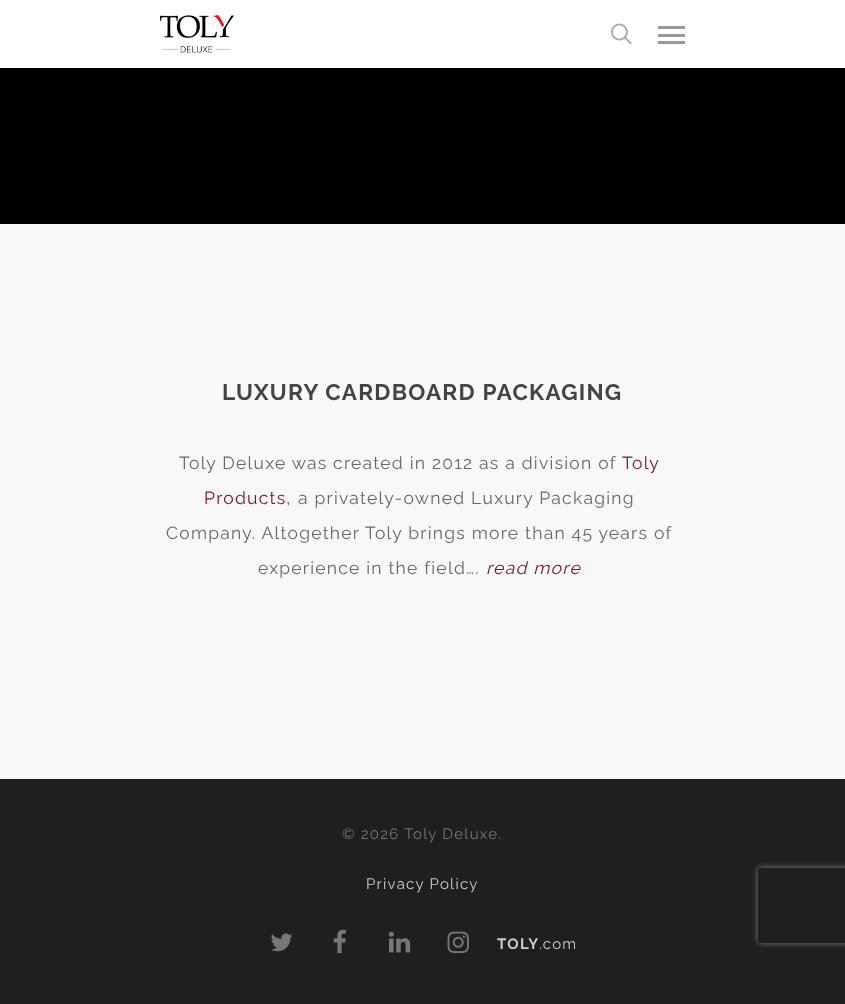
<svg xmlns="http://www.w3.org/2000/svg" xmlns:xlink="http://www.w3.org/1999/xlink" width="845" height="1004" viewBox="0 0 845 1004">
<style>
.cls-1{font:bold 22.5px Raleway;letter-spacing:1.25px;fill:#444444}
.cls-2{font:17.5px Raleway;letter-spacing:1.25px;fill:#676767}
.cls-3{font:17.5px Raleway;letter-spacing:1.25px;fill:#7e0e2d}
.cls-4{font:italic 17.5px Raleway;letter-spacing:1.25px;fill:#7e0e2d}
.cls-5{font:15px Raleway;letter-spacing:1.25px;fill:#777777}
.cls-6{font:15px Raleway;letter-spacing:1.25px;fill:#cccccc}
.cls-7{font:bold 15px Raleway;letter-spacing:1.25px;fill:#cccccc}
</style>
<defs>
<clipPath id="clip1"><path d="M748 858H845V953H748ZM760.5 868H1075.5C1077 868 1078 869 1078 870.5V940.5C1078 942 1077 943 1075.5 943H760.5C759 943 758 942 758 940.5V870.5C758 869 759 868 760.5 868Z" clip-rule="evenodd"/></clipPath>
</defs>
<rect width="100%" height="100%" fill="#f8f8f8"/>
<rect fill="#ffffff" x="0" y="0" width="845" height="68"/>
<image xlink:href="image0.png" x="160" y="15" width="74" height="38"/>
<image xlink:href="image1.png" x="611" y="23" width="21" height="22"/>
<rect fill="#999999" x="658" y="26" width="27" height="3"/>
<rect fill="#999999" x="658" y="41" width="27" height="3"/>
<rect fill="#999999" x="658" y="34" width="27" height="3"/>
<rect fill="#000000" x="0" y="68" width="845" height="156"/>
<rect fill="#1f1f1f" x="0" y="779" width="845" height="225"/>
<image xlink:href="image2.png" x="271" y="933" width="22" height="19"/>
<image xlink:href="image3.png" x="333" y="929" width="13" height="25"/>
<image xlink:href="image4.png" x="388" y="931" width="23" height="22"/>
<image xlink:href="image5.png" x="447" y="931" width="22" height="22"/>
<g clip-path="url(#clip1)">
<rect fill="#808080" filter="blur(3px)" x="758" y="868" width="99" height="75" rx="2.5"/>
</g>
<text class="cls-1" x="222" y="400">LUXURY CARDBOARD PACKAGING</text>
<text class="cls-2" x="179" y="469">Toly Deluxe was created in 2012 as a division of</text>
<text class="cls-3" x="622" y="469">Toly</text>
<text class="cls-3" x="204" y="504">Products,</text>
<text class="cls-2" x="298" y="504">a privately-owned Luxury Packaging</text>
<text class="cls-2" x="166" y="539">Company. Altogether Toly brings more than 45 years of</text>
<text class="cls-2" x="258" y="574">experience in the field….</text>
<text class="cls-4" x="486" y="574">read more</text>
<text class="cls-5" x="342" y="839">© 2026 Toly Deluxe.</text>
<text class="cls-6" x="366" y="889">Privacy Policy</text>
<text class="cls-7" x="497" y="949">TOLY</text>
<text class="cls-6" x="539" y="949">.com</text>
</svg>
